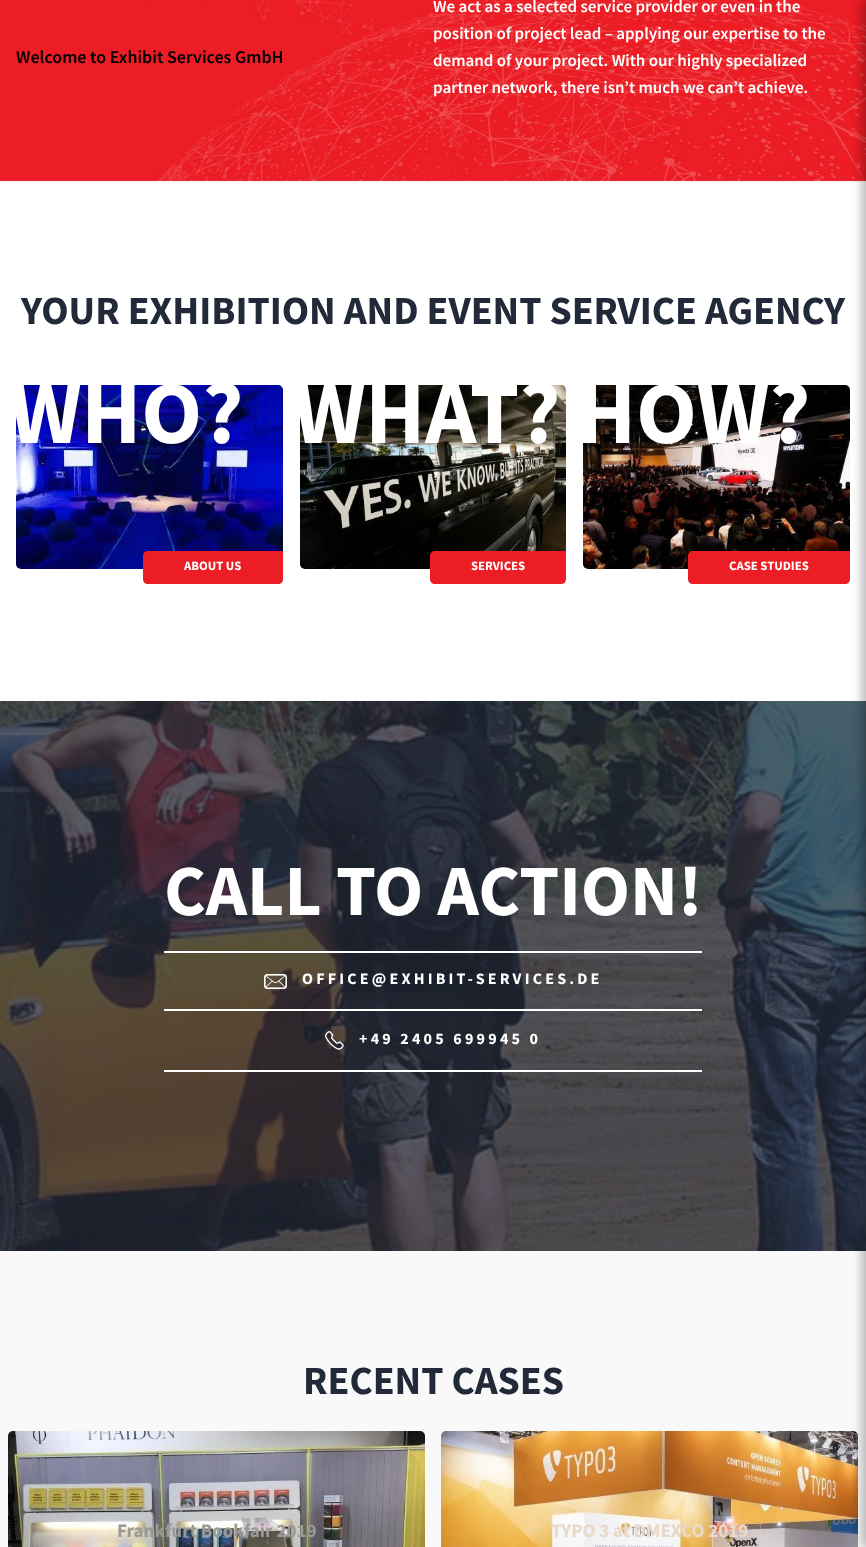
<svg xmlns="http://www.w3.org/2000/svg" xmlns:xlink="http://www.w3.org/1999/xlink" width="866" height="1547" viewBox="0 0 866 1547">
<style>
.cls-1{font:600 18px Source Sans Pro;fill:#000000}
.cls-2{font:600 17px Source Sans Pro;fill:#ffffff}
.cls-3{font:bold 40px Source Sans Pro;fill:#222939}
.cls-4{font:bold 89px Source Sans Pro;fill:#ffffff}
.cls-5{font:bold 12.75px Source Sans Pro;fill:#ffffff}
.cls-6{font:bold 72px Source Sans Pro;fill:#ffffff}
.cls-7{font:bold 16px Source Sans Pro;letter-spacing:3.2px;fill:#ffffff}
.cls-8{font:bold 19px Source Sans Pro;fill:#999996}
.cls-9{font:bold 19px Source Sans Pro;fill:#e9d9c9}
</style>
<rect width="100%" height="100%" fill="#ffffff"/>
<image xlink:href="image0.png" x="0" y="0" width="866" height="182"/>
<image xlink:href="image1.png" x="16" y="385" width="267" height="184"/>
<path fill="#ec1d24" d="M148 551H283V579C283 582 281 584 278 584H148C145 584 143 582 143 579V556C143 553 145 551 148 551Z"/>
<image xlink:href="image2.png" x="300" y="385" width="266" height="184"/>
<path fill="#ec1d24" d="M435 551H566V579C566 582 564 584 561 584H435C432 584 430 582 430 579V556C430 553 432 551 435 551Z"/>
<image xlink:href="image3.png" x="583" y="385" width="267" height="184"/>
<path fill="#ec1d24" d="M693 551H850V579C850 582 848 584 845 584H693C690 584 688 582 688 579V556C688 553 690 551 693 551Z"/>
<image xlink:href="image4.png" x="0" y="701" width="866" height="550"/>
<rect fill="#ffffff" x="164" y="951" width="538" height="2"/>
<image xlink:href="image5.png" x="264" y="974" width="23" height="15"/>
<rect fill="#ffffff" x="164" y="1009" width="538" height="2"/>
<rect fill="#ffffff" x="164" y="1070" width="538" height="2"/>
<image xlink:href="image6.png" x="325" y="1031" width="19" height="19"/>
<rect fill="#f9f9fa" x="0" y="1251" width="866" height="296"/>
<image xlink:href="image7.png" x="8" y="1431" width="417" height="116"/>
<image xlink:href="image8.png" x="441" y="1431" width="417" height="116"/>
<rect fill="#000000" fill-opacity="0.25" filter="blur(5px)" x="861" y="0" width="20" height="1547"/>
<text class="cls-1" x="16" y="63">Welcome to Exhibit Services GmbH</text>
<text class="cls-2"><tspan x="433" y="12">We act as a selected service provider or even in the</tspan><tspan x="433" y="39">position of project lead – applying our expertise to the</tspan><tspan x="433" y="66">demand of your project. With our highly specialized</tspan><tspan x="433" y="93">partner network, there isn’t much we can’t achieve.</tspan></text>
<text class="cls-3" x="21" y="324">YOUR EXHIBITION AND EVENT SERVICE AGENCY</text>
<text class="cls-4" x="9" y="443">WHO?</text>
<text class="cls-5" x="184" y="570">ABOUT US</text>
<text class="cls-4" x="293" y="443">WHAT?</text>
<text class="cls-5" x="471" y="570">SERVICES</text>
<text class="cls-4" x="576" y="443">HOW?</text>
<text class="cls-5" x="729" y="570">CASE STUDIES</text>
<text class="cls-6" x="164" y="915">CALL TO ACTION!</text>
<text class="cls-7" x="302" y="984">OFFICE@EXHIBIT-SERVICES.DE</text>
<text class="cls-7" x="359" y="1044">+49 2405 699945 0</text>
<text class="cls-3" x="303" y="1394">RECENT CASES</text>
<text class="cls-8" x="117" y="1537">Frankfurt Bookfair 2019</text>
<text class="cls-9" x="551" y="1537">TYPO 3 at DMEXCO 2019</text>
</svg>
